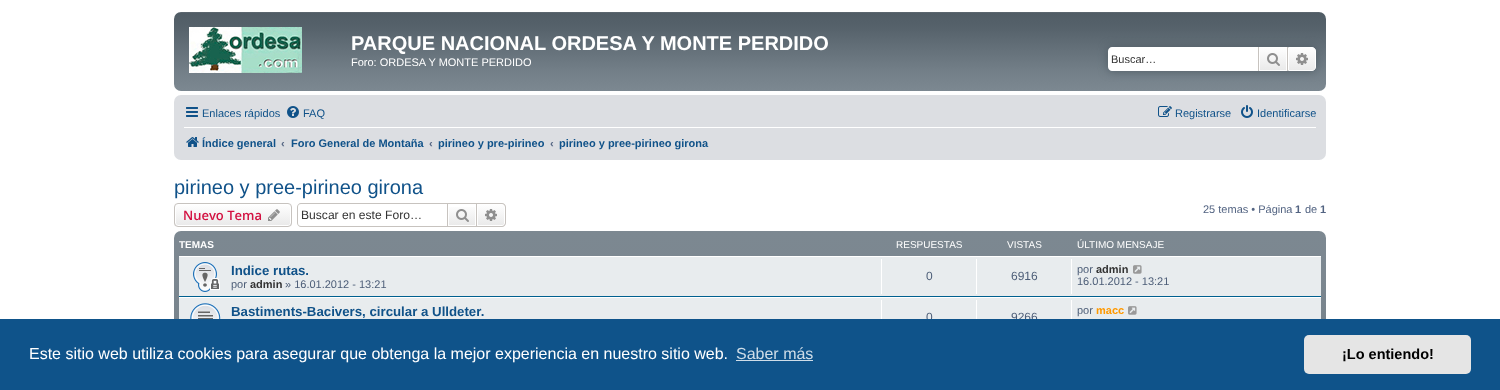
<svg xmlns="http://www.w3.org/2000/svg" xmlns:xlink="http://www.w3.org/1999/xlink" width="1500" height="390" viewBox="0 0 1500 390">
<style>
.cls-1{font:bold 20px Liberation Sans;fill:#ffffff}
.cls-2{font:11px Liberation Sans;fill:#ffffff}
.cls-3{font:11px Liberation Sans;fill:#333333}
.cls-4{font:11px Liberation Sans;fill:#105289}
.cls-5{font:bold 11px Liberation Sans;fill:#105289}
.cls-6{font:bold 11px Liberation Sans;fill:#536482}
.cls-7{font:20px Liberation Sans;fill:#105289}
.cls-8{font:600 13px Open Sans;fill:#d31141}
.cls-9{font:12.1px Liberation Sans;fill:#333333}
.cls-10{font:11px Liberation Sans;fill:#536482}
.cls-11{font:bold 10px Liberation Sans;fill:#ffffff}
.cls-12{font:10px Liberation Sans;fill:#ffffff}
.cls-13{font:bold 13.25px Liberation Sans;fill:#105289}
.cls-14{font:11px Liberation Sans;fill:#4c5d77}
.cls-15{font:bold 11px Liberation Sans;fill:#333333}
.cls-16{font:12px Liberation Sans;fill:#4c5d77}
.cls-17{font:bold 11px Liberation Sans;fill:#ff9900}
.cls-18{font:16px Liberation Sans;fill:#ffffff}
.cls-19{font:16px Liberation Sans;fill:#cfdde8}
.cls-20{font:bold 14.5px Liberation Sans;fill:#000000}
</style>
<defs>
<linearGradient id="g1" gradientUnits="userSpaceOnUse" x1="750" y1="12" x2="750" y2="91"><stop offset="0" stop-color="#6e777f"/><stop offset="0.01" stop-color="#505c65"/><stop offset="0.2" stop-color="#56626b"/><stop offset="0.75" stop-color="#737f88"/><stop offset="1" stop-color="#7c8891"/></linearGradient>
<linearGradient id="g2" gradientUnits="userSpaceOnUse" x1="1273" y1="47" x2="1273" y2="71"><stop offset="0" stop-color="#ffffff"/><stop offset="1" stop-color="#e9e9e9"/></linearGradient>
<linearGradient id="g3" gradientUnits="userSpaceOnUse" x1="1302" y1="47" x2="1302" y2="71"><stop offset="0" stop-color="#ffffff"/><stop offset="1" stop-color="#e9e9e9"/></linearGradient>
<clipPath id="clip1"><rect x="174" y="203" width="118" height="24" rx="4"/></clipPath>
<linearGradient id="g4" gradientUnits="userSpaceOnUse" x1="233" y1="204" x2="233" y2="226"><stop offset="0" stop-color="#ffffff"/><stop offset="1" stop-color="#e9e9e9"/></linearGradient>
<linearGradient id="g5" gradientUnits="userSpaceOnUse" x1="462" y1="204" x2="462" y2="226"><stop offset="0" stop-color="#ffffff"/><stop offset="1" stop-color="#e9e9e9"/></linearGradient>
<linearGradient id="g6" gradientUnits="userSpaceOnUse" x1="491" y1="204" x2="491" y2="226"><stop offset="0" stop-color="#ffffff"/><stop offset="1" stop-color="#e9e9e9"/></linearGradient>
<linearGradient id="g7" gradientUnits="userSpaceOnUse" x1="750" y1="231" x2="750" y2="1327"><stop offset="0" stop-color="#7c8891"/><stop offset="0.04" stop-color="#7c8790"/><stop offset="0.1" stop-color="#76828b"/><stop offset="0.29" stop-color="#5b666f"/><stop offset="0.38" stop-color="#505c65"/><stop offset="1" stop-color="#505c65"/></linearGradient>
</defs>
<rect width="100%" height="100%" fill="#ffffff"/>
<rect fill="url(#g1)" x="174" y="12" width="1152" height="79" rx="7"/>
<image xlink:href="image0.png" x="189" y="27" width="113" height="46"/>
<rect fill="#505c65" filter="blur(5px)" x="1108" y="47" width="208" height="24" rx="4"/>
<path fill="#ffffff" d="M1112 47H1258V71H1112C1110 71 1108 69 1108 67V51C1108 49 1110 47 1112 47Z"/>
<rect fill="url(#g2)" x="1260" y="48" width="26" height="22"/>
<rect fill="none" stroke="#ffffff" x="1259.5" y="47.5" width="27" height="23"/>
<rect fill="#c7c3bf" x="1287" y="47" width="1" height="24"/>
<rect fill="#c7c3bf" x="1258" y="47" width="1" height="24"/>
<image xlink:href="image1.png" x="1267" y="53" width="13" height="13"/>
<path fill="url(#g3)" stroke="#ffffff" d="M1288.5 47.5H1312C1314 47.5 1315.5 49 1315.5 51V67C1315.5 69 1314 70.5 1312 70.5H1288.5Z"/>
<image xlink:href="image2.png" x="1296" y="53" width="12" height="12"/>
<rect fill="#dcdee2" x="174" y="95" width="1152" height="65" rx="7"/>
<image xlink:href="image3.png" x="186" y="107" width="12" height="10"/>
<image xlink:href="image4.png" x="287" y="106" width="12" height="12"/>
<image xlink:href="image5.png" x="1158" y="106" width="14" height="11"/>
<image xlink:href="image6.png" x="1241" y="105" width="12" height="13"/>
<rect fill="#ffffff" x="184" y="127" width="1132" height="1"/>
<image xlink:href="image7.png" x="186" y="137" width="13" height="10"/>
<g clip-path="url(#clip1)">
<rect fill="url(#g4)" x="174" y="204" width="118" height="22"/>
</g>
<rect fill="none" stroke="#ffffff" x="175.5" y="204.5" width="115" height="21" rx="2.5"/>
<rect fill="none" stroke="#c7c3bf" x="174.5" y="203.5" width="117" height="23" rx="3.5"/>
<image xlink:href="image8.png" x="268" y="209" width="12" height="12"/>
<path fill="#c7c3bf" fill-rule="evenodd" d="M301 203H447V227H301C299 227 297 225 297 223V207C297 205 299 203 301 203ZM301 204H447V226H301C299 226 298 225 298 223V207C298 205 299 204 301 204Z"/>
<rect fill="url(#g5)" x="449" y="207" width="26" height="18"/>
<rect fill="none" stroke="#c7c3bf" x="447.5" y="203.5" width="29" height="23"/>
<image xlink:href="image9.png" x="456" y="209" width="13" height="13"/>
<path fill="url(#g6)" stroke="#ffffff" d="M477.5 204.5H502C503.5 204.5 504.5 205.5 504.5 207V223C504.5 224.5 503.5 225.5 502 225.5H477.5Z"/>
<path fill="#c7c3bf" fill-rule="evenodd" d="M477 203H502C504 203 506 205 506 207V223C506 225 504 227 502 227H477ZM477 204H502C503.5 204 505 205.5 505 207V223C505 224.5 503.5 226 502 226H477Z"/>
<image xlink:href="image10.png" x="485" y="209" width="12" height="12"/>
<rect fill="url(#g7)" x="174" y="231" width="1152" height="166" rx="7"/>
<rect fill="#e8ecee" x="179" y="257" width="1142" height="39"/>
<rect fill="#ffffff" x="179" y="256" width="1142" height="1"/>
<rect fill="#00608f" x="179" y="296" width="1142" height="1"/>
<image xlink:href="image11.png" x="193" y="262" width="27" height="30"/>
<rect fill="#ffffff" x="881" y="259" width="1" height="35"/>
<rect fill="#ffffff" x="976" y="259" width="1" height="35"/>
<rect fill="#ffffff" x="1071" y="259" width="1" height="35"/>
<image xlink:href="image12.png" x="1133" y="265" width="9" height="9"/>
<rect fill="#e8ecee" x="179" y="298" width="1142" height="21"/>
<rect fill="#ffffff" x="179" y="297" width="1142" height="1"/>
<image xlink:href="image13.png" x="190" y="303" width="31" height="16"/>
<rect fill="#ffffff" x="881" y="300" width="1" height="19"/>
<rect fill="#ffffff" x="976" y="300" width="1" height="19"/>
<rect fill="#ffffff" x="1071" y="300" width="1" height="19"/>
<image xlink:href="image12.png" x="1128" y="306" width="9" height="9"/>
<text class="cls-1" x="351" y="50">PARQUE NACIONAL ORDESA Y MONTE PERDIDO</text>
<text class="cls-2" x="351" y="66">Foro: ORDESA Y MONTE PERDIDO</text>
<text class="cls-3" x="1111" y="63">Buscar…</text>
<text class="cls-4" x="202" y="117">Enlaces rápidos</text>
<text class="cls-4" x="303" y="117">FAQ</text>
<text class="cls-4" x="1175" y="117">Registrarse</text>
<text class="cls-4" x="1257" y="117">Identificarse</text>
<text class="cls-5" x="202" y="147">Índice general</text>
<text class="cls-6" x="281" y="147">‹</text>
<text class="cls-5" x="291" y="147">Foro General de Montaña</text>
<text class="cls-6" x="429" y="147">‹</text>
<text class="cls-5" x="438" y="147">pirineo y pre-pirineo</text>
<text class="cls-6" x="550" y="147">‹</text>
<text class="cls-5" x="559" y="147">pirineo y pree-pirineo girona</text>
<text class="cls-7" x="174" y="194">pirineo y pree-pirineo girona</text>
<text class="cls-8" x="183" y="220">Nuevo Tema</text>
<text class="cls-9" x="301" y="219">Buscar en este Foro…</text>
<text class="cls-10" x="1203" y="213">25 temas • Página</text>
<text class="cls-6" x="1295" y="213">1</text>
<text class="cls-10" x="1305" y="213">de</text>
<text class="cls-6" x="1320" y="213">1</text>
<text class="cls-11" x="179" y="248">TEMAS</text>
<text class="cls-12" x="896" y="248">RESPUESTAS</text>
<text class="cls-12" x="1007" y="248">VISTAS</text>
<text class="cls-12" x="1077" y="248">ÚLTIMO MENSAJE</text>
<text class="cls-13" x="231" y="275">Indice rutas.</text>
<text class="cls-14" x="231" y="288">por</text>
<text class="cls-15" x="250" y="288">admin</text>
<text class="cls-14" x="285" y="288">» 16.01.2012 - 13:21</text>
<text class="cls-16" x="926" y="280">0</text>
<text class="cls-16" x="1011" y="280">6916</text>
<text class="cls-14" x="1077" y="273">por</text>
<text class="cls-15" x="1096" y="273">admin</text>
<text class="cls-14" x="1077" y="285">16.01.2012 - 13:21</text>
<text class="cls-13" x="231" y="316">Bastiments-Bacivers, circular a Ulldeter.</text>
<text class="cls-16" x="926" y="321">0</text>
<text class="cls-16" x="1011" y="321">9266</text>
<text class="cls-14" x="1077" y="314">por</text>
<text class="cls-17" x="1096" y="314">macc</text>
<rect fill="#0f538a" x="0" y="319" width="1500" height="71"/>
<text class="cls-18" x="29" y="359">Este sitio web utiliza cookies para asegurar que obtenga la mejor experiencia en nuestro sitio web.</text>
<text class="cls-19" x="736" y="359">Saber más</text>
<rect fill="#cfdde8" x="736" y="360" width="77" height="1"/>
<rect fill="#e5e5e5" x="1304" y="335" width="167" height="39" rx="5"/>
<text class="cls-20" x="1342" y="359">¡Lo entiendo!</text>
</svg>
